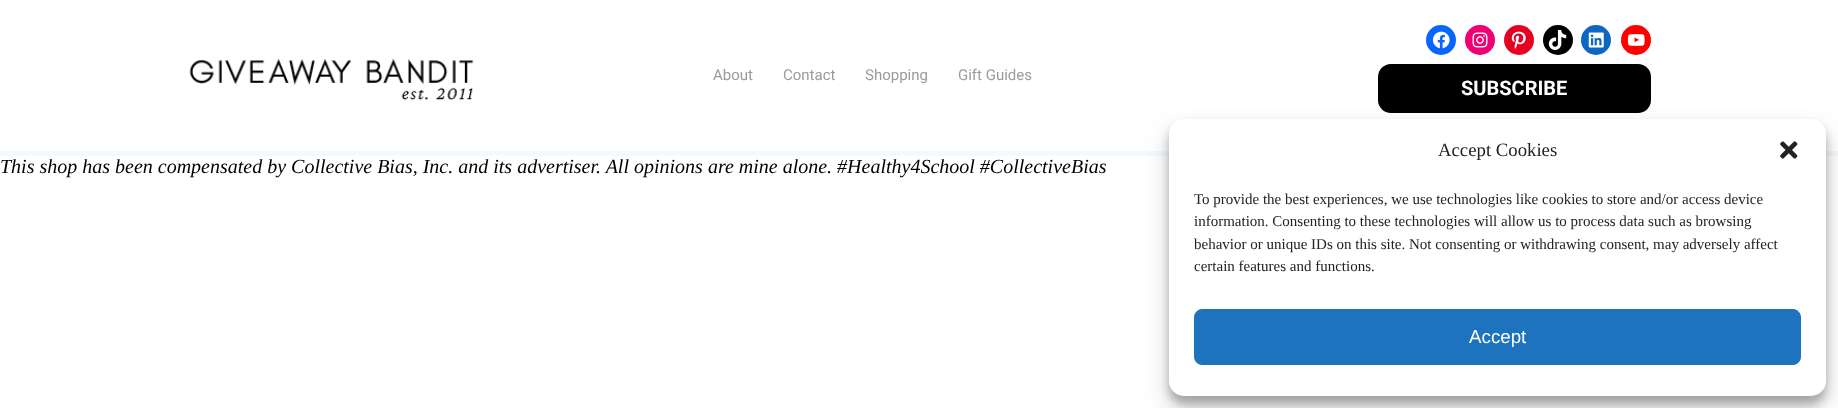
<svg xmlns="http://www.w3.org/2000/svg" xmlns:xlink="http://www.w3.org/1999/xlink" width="1838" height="408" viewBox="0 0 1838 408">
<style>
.cls-1{font:15px Roboto;fill:#9b9b9b}
.cls-2{font:bold 20px Roboto;fill:#ffffff}
.cls-3{font:italic 20px Liberation Serif;fill:#000000}
.cls-4{font:18.75px Liberation Serif;fill:#222222}
.cls-5{font:15px Liberation Serif;fill:#222222}
.cls-6{font:18.75px Liberation Sans;fill:#ffffff}
</style>
<rect width="100%" height="100%" fill="#ffffff"/>
<image xlink:href="image0.png" x="189" y="58" width="285" height="43"/>
<circle fill="#0866ff" cx="1441" cy="40" r="15"/>
<image xlink:href="image1.png" x="1432" y="31" width="18" height="18"/>
<circle fill="#f00075" cx="1480" cy="40" r="15"/>
<image xlink:href="image2.png" x="1472" y="32" width="16" height="16"/>
<circle fill="#e60122" cx="1519" cy="40" r="15"/>
<image xlink:href="image3.png" x="1511" y="31" width="15" height="18"/>
<circle fill="#000000" cx="1558" cy="40" r="15"/>
<image xlink:href="image4.png" x="1548" y="30" width="19" height="20"/>
<circle fill="#0d66c2" cx="1596" cy="40" r="15"/>
<image xlink:href="image5.png" x="1588" y="32" width="16" height="16"/>
<circle fill="#ff0000" cx="1636" cy="40" r="15"/>
<image xlink:href="image6.png" x="1627" y="34" width="18" height="12"/>
<rect fill="#000000" x="1378" y="64" width="273" height="49" rx="13"/>
<rect fill="#f4f9fd" x="0" y="151" width="1838" height="5"/>
<rect fill="#000000" fill-opacity="0.23" filter="blur(4px)" x="1169" y="126" width="657" height="278" rx="15"/>
<rect fill="#000000" fill-opacity="0.19" filter="blur(12.5px)" x="1169" y="131" width="657" height="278" rx="15"/>
<rect fill="#ffffff" x="1169" y="119" width="657" height="277" rx="15"/>
<image xlink:href="image7.png" x="1780" y="141" width="18" height="18"/>
<rect fill="#1e73be" stroke="#1e73be" x="1194.5" y="309.5" width="606" height="55" rx="7.5"/>
<text class="cls-1" x="713" y="80">About</text>
<text class="cls-1" x="783" y="80">Contact</text>
<text class="cls-1" x="865" y="80">Shopping</text>
<text class="cls-1" x="958" y="80">Gift Guides</text>
<text class="cls-2" x="1461" y="95">SUBSCRIBE</text>
<text class="cls-3" x="0" y="173">This shop has been compensated by Collective Bias, Inc. and its advertiser. All opinions are mine alone. #Healthy4School #CollectiveBias</text>
<text class="cls-4" x="1438" y="156">Accept Cookies</text>
<text class="cls-5"><tspan x="1194" y="204">To provide the best experiences, we use technologies like cookies to store and/or access device</tspan><tspan x="1194" y="226">information. Consenting to these technologies will allow us to process data such as browsing</tspan><tspan x="1194" y="249">behavior or unique IDs on this site. Not consenting or withdrawing consent, may adversely affect</tspan><tspan x="1194" y="271">certain features and functions.</tspan></text>
<text class="cls-6" x="1469" y="343">Accept</text>
</svg>
